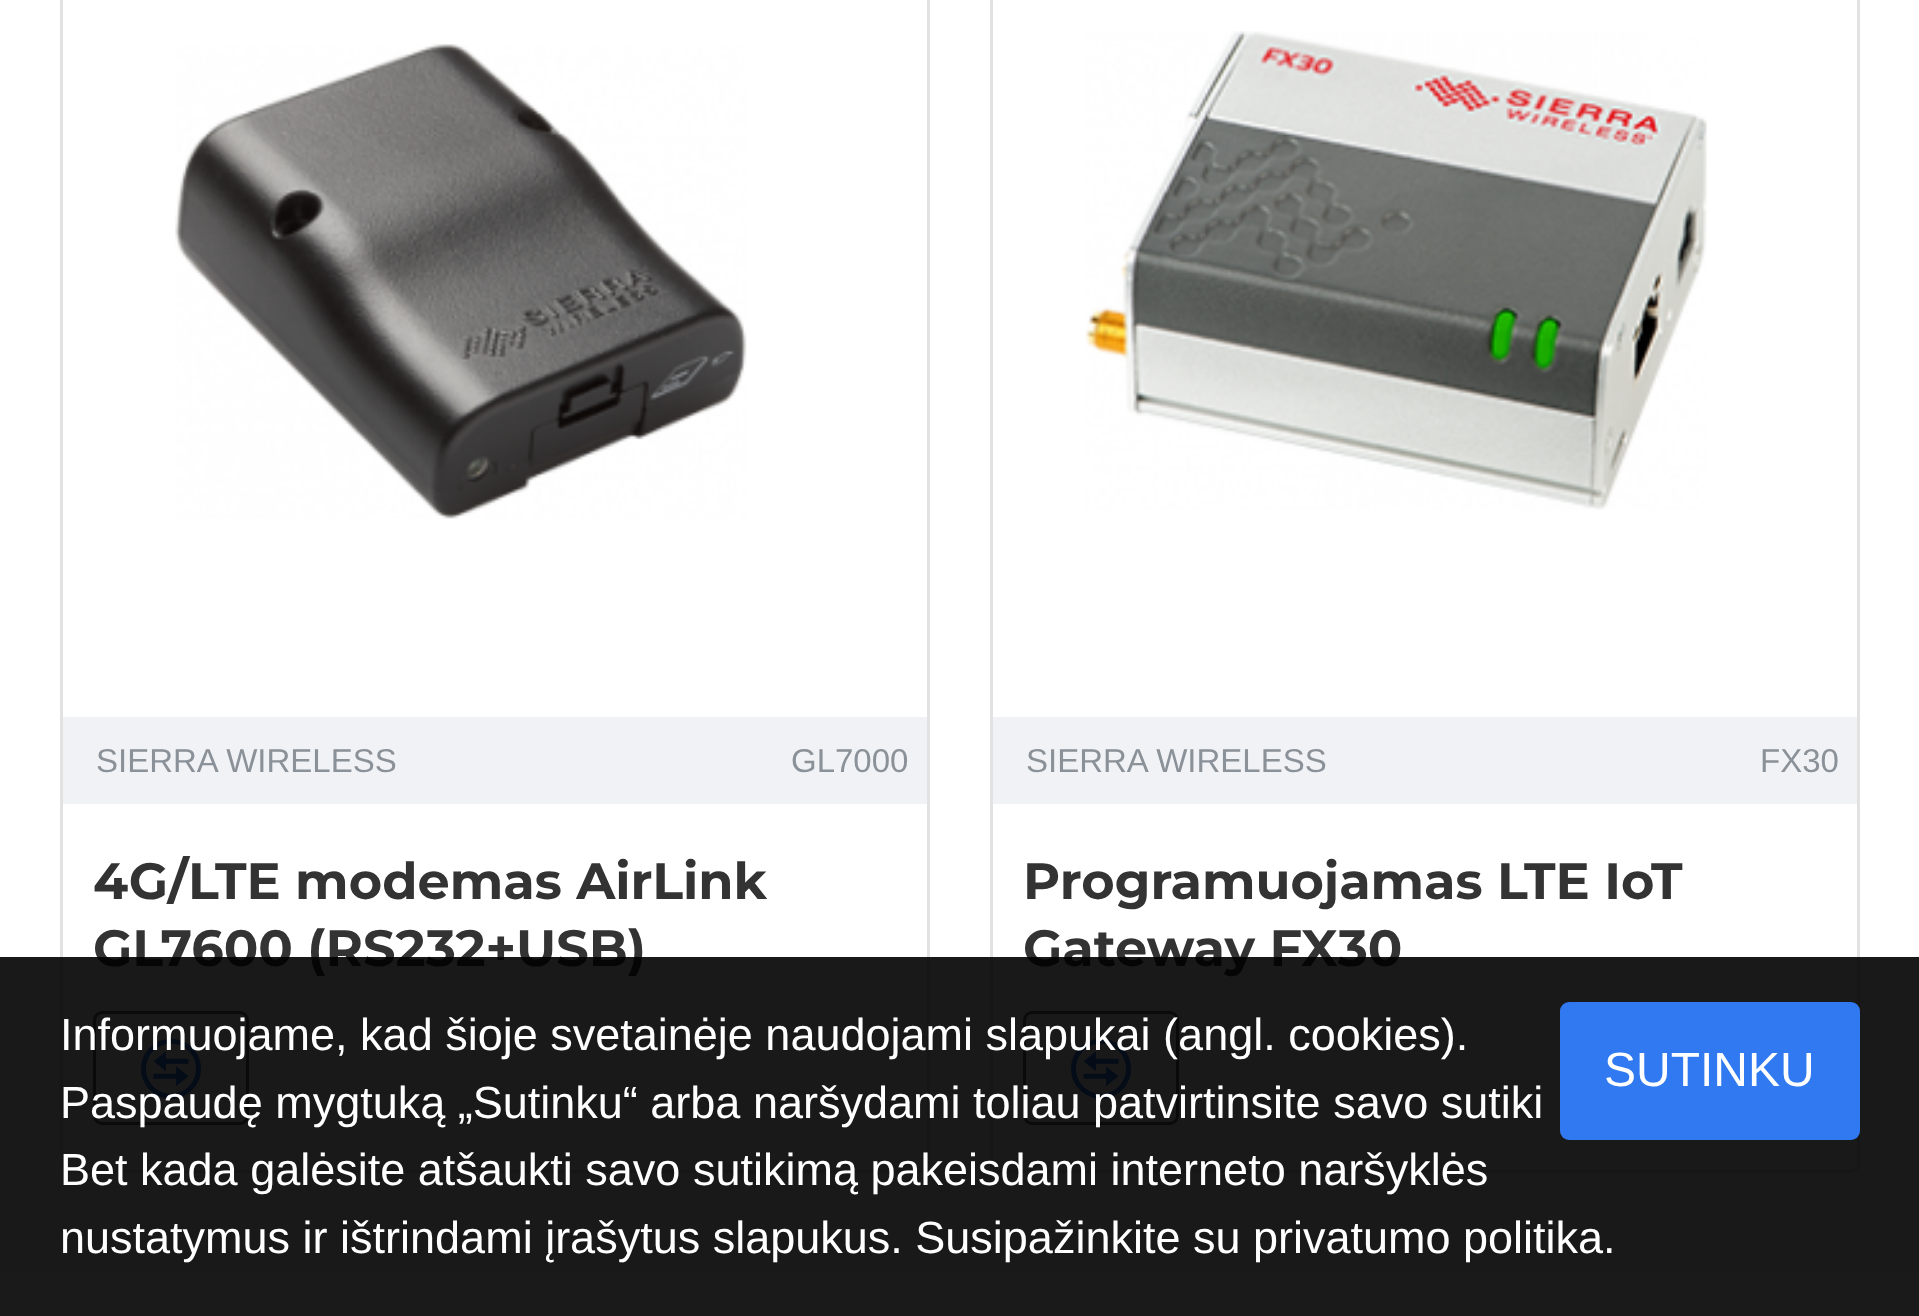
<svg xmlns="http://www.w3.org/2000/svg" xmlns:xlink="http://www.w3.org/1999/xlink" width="1919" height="1316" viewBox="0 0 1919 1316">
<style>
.cls-1{font:33px Liberation Sans;fill:#8b9198}
.cls-2{font:bold 51px Montserrat;fill:#333333}
.cls-3{font:45px Liberation Sans;fill:#ffffff}
.cls-4{font:48px Liberation Sans;fill:#ffffff}
</style>
<rect width="100%" height="100%" fill="#ffffff"/>
<rect fill="none" stroke="#e2e2e2" stroke-width="3" x="61.5" y="-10.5" width="867" height="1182" rx="7.5"/>
<image xlink:href="image0.png" x="175" y="44" width="572" height="475"/>
<rect fill="#f0f2f5" x="63" y="717" width="864" height="87"/>
<rect fill="none" stroke="#696973" stroke-width="3" x="94.5" y="1012.5" width="153" height="111" rx="7.5"/>
<image xlink:href="image1.png" x="141" y="1038" width="60" height="61"/>
<rect fill="none" stroke="#e2e2e2" stroke-width="3" x="991.5" y="-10.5" width="867" height="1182" rx="7.5"/>
<image xlink:href="image2.png" x="1085" y="31" width="622" height="479"/>
<rect fill="#f0f2f5" x="993" y="717" width="864" height="87"/>
<rect fill="none" stroke="#696973" stroke-width="3" x="1024.5" y="1012.5" width="153" height="111" rx="7.5"/>
<image xlink:href="image1.png" x="1071" y="1038" width="60" height="61"/>
<text class="cls-1" x="96" y="772">SIERRA WIRELESS</text>
<text class="cls-1" x="791" y="772">GL7000</text>
<text class="cls-2"><tspan x="93" y="899">4G/LTE modemas AirLink</tspan><tspan x="93" y="966">GL7600 (RS232+USB)</tspan></text>
<text class="cls-1" x="1026" y="772">SIERRA WIRELESS</text>
<text class="cls-1" x="1760" y="772">FX30</text>
<text class="cls-2"><tspan x="1023" y="899">Programuojamas LTE IoT</tspan><tspan x="1023" y="966">Gateway FX30</tspan></text>
<rect fill="#000000" fill-opacity="0.9" x="0" y="957" width="1919" height="359"/>
<text class="cls-3"><tspan x="60" y="1050">Informuojame, kad šioje svetainėje naudojami slapukai (angl. cookies).</tspan><tspan x="60" y="1118">Paspaudę mygtuką „Sutinku“ arba naršydami toliau patvirtinsite savo sutiki</tspan><tspan x="60" y="1185">Bet kada galėsite atšaukti savo sutikimą pakeisdami interneto naršyklės</tspan><tspan x="60" y="1253">nustatymus ir ištrindami įrašytus slapukus. Susipažinkite su privatumo politika.</tspan></text>
<rect fill="#3079f1" x="1560" y="1002" width="300" height="138" rx="9"/>
<text class="cls-4" x="1604" y="1086">SUTINKU</text>
</svg>
